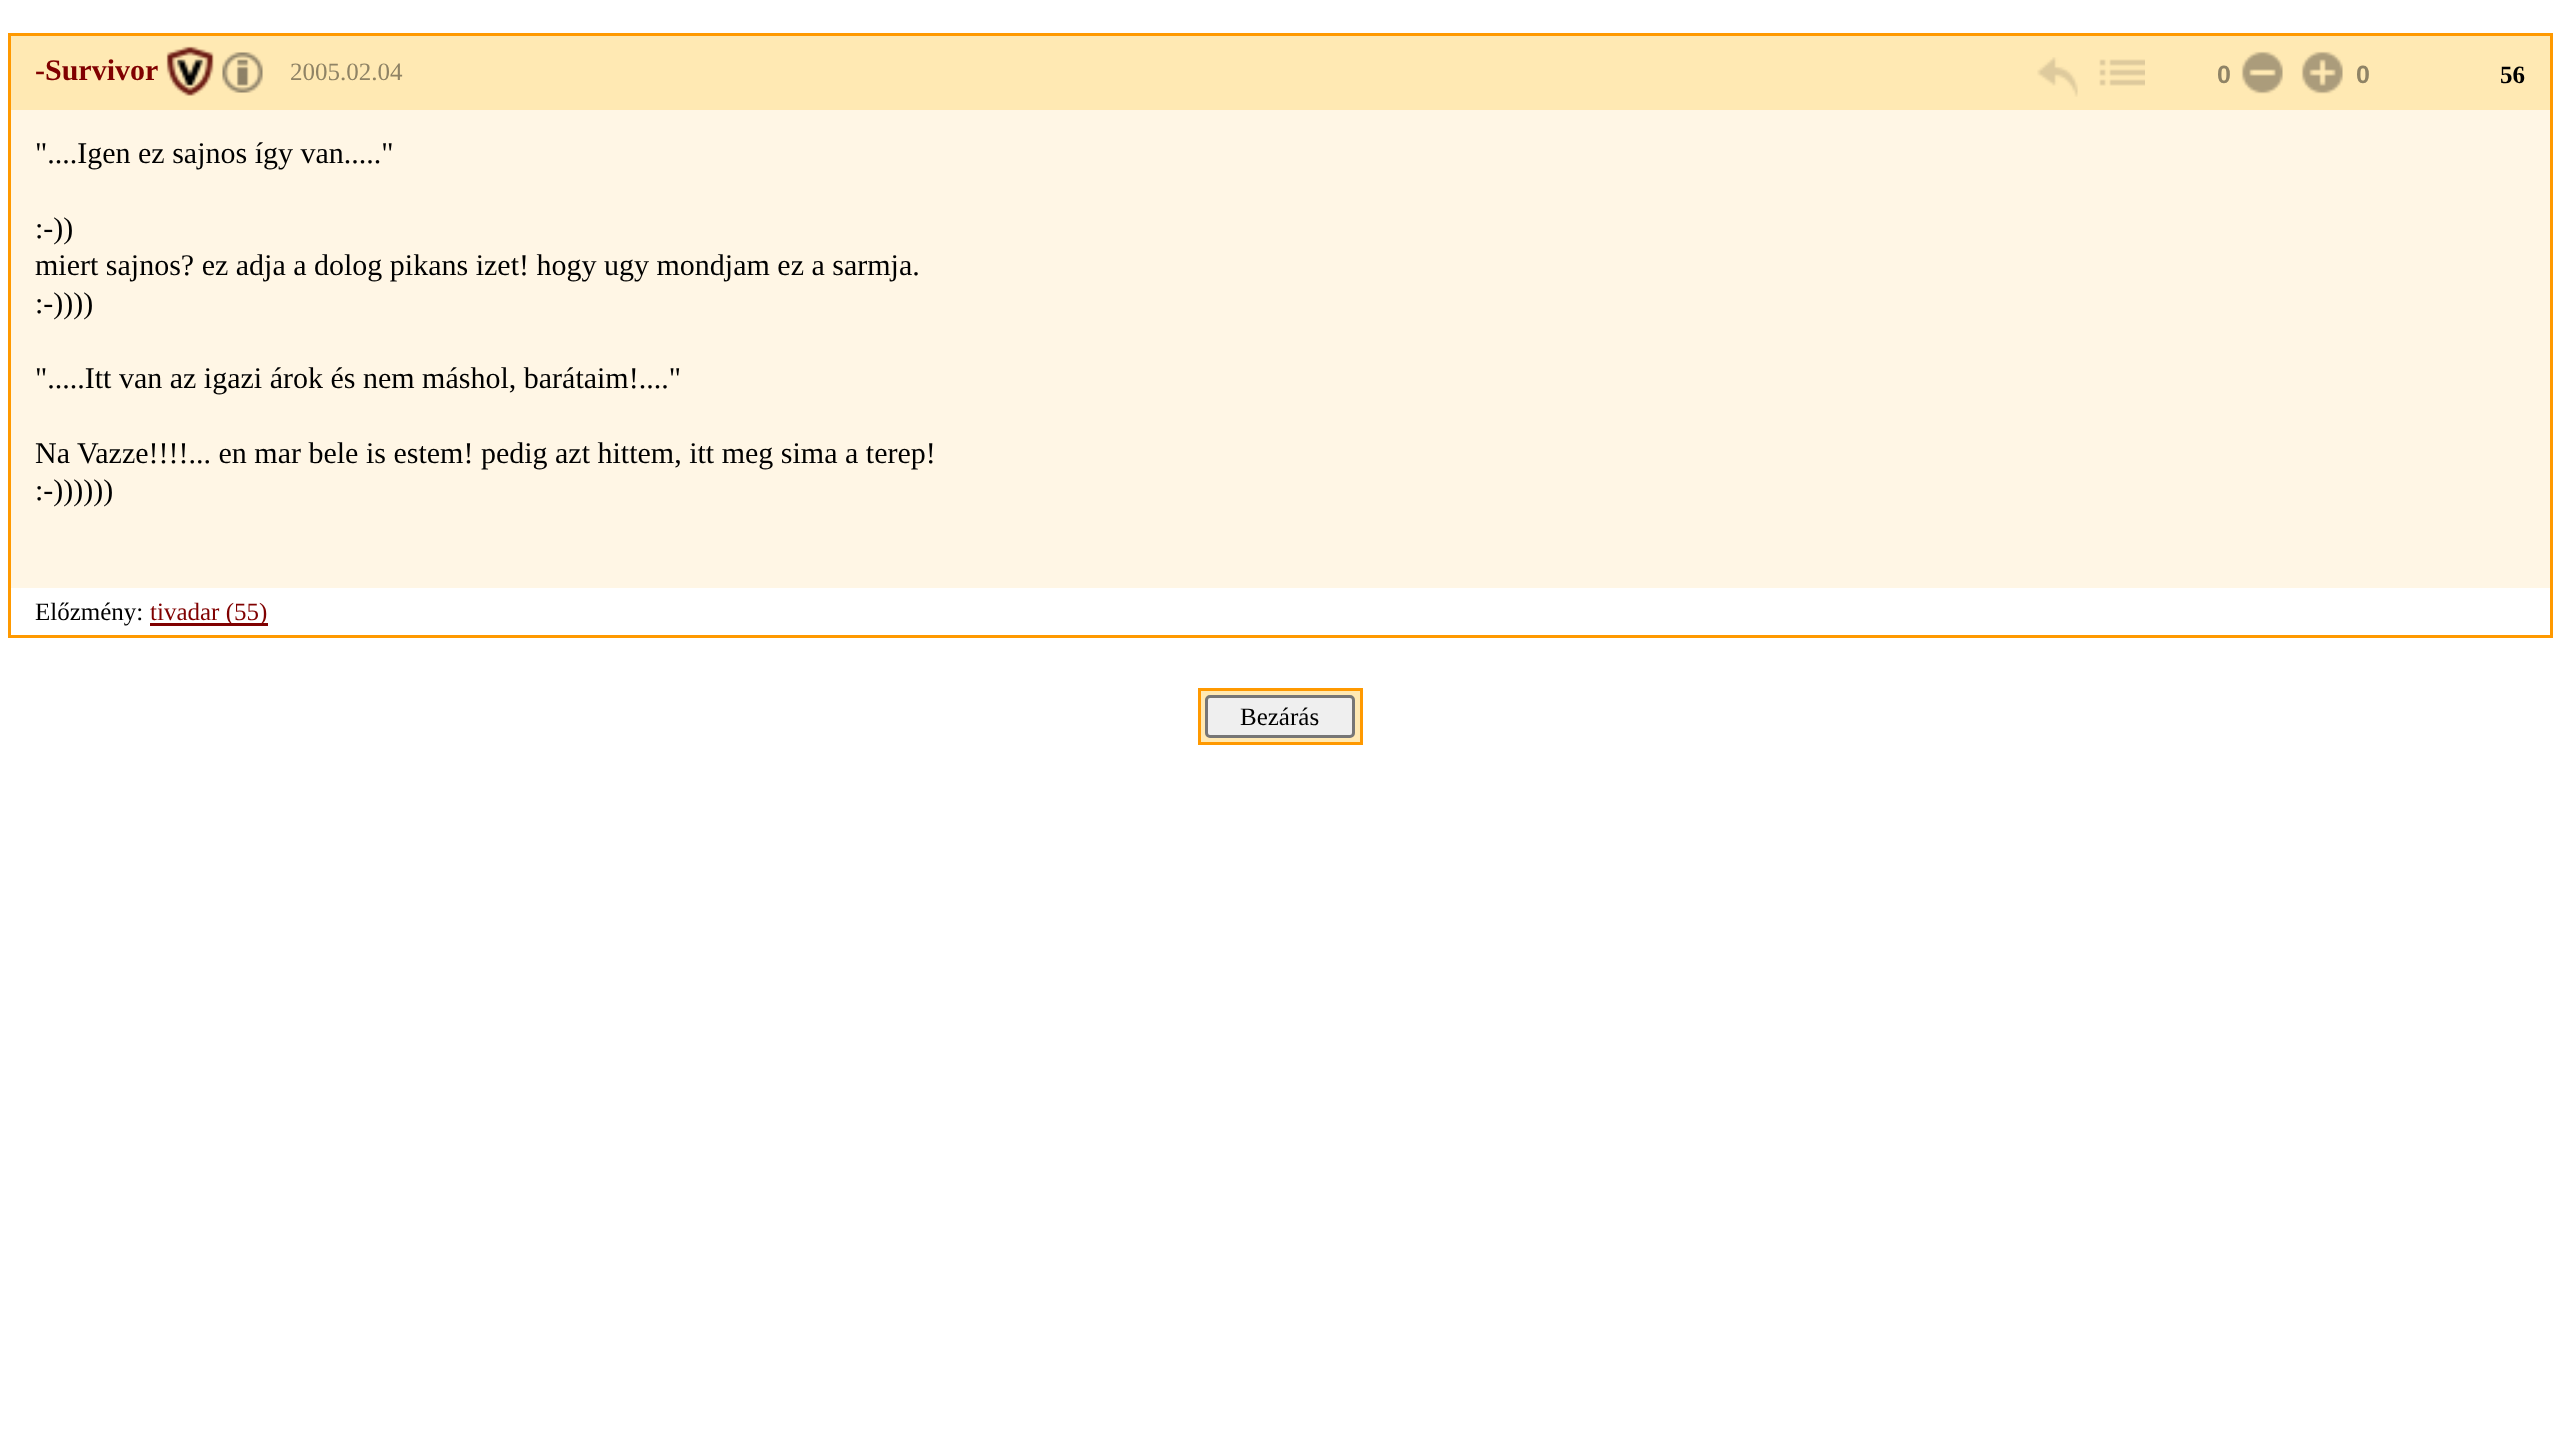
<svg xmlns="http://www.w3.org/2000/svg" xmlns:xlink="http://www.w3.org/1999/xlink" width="2559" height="1456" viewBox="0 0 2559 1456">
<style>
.cls-1{font:bold 30px Liberation Serif;fill:#800000}
.cls-2{font:25px Liberation Serif;fill:#8f8365}
.cls-3{font:bold 25px Liberation Sans;fill:#8f8365}
.cls-4{font:bold 25px Liberation Serif;fill:#000000}
.cls-5{font:30px Liberation Serif;fill:#000000}
.cls-6{font:25px Liberation Serif;fill:#000000}
.cls-7{font:25px Liberation Serif;fill:#800000}
</style>
<rect width="100%" height="100%" fill="#ffffff"/>
<rect fill="#ff9900" x="8" y="33" width="2545" height="3"/>
<rect fill="#ff9900" x="2550" y="33" width="3" height="605"/>
<rect fill="#ff9900" x="8" y="635" width="2545" height="3"/>
<rect fill="#ff9900" x="8" y="33" width="3" height="605"/>
<rect fill="#ffe9b3" x="11" y="36" width="2539" height="74"/>
<image xlink:href="image0.png" x="166" y="46" width="48" height="50"/>
<image xlink:href="image1.png" x="222" y="52" width="41" height="41"/>
<image xlink:href="image2.png" x="2037" y="57" width="41" height="40"/>
<image xlink:href="image3.png" x="2099" y="59" width="46" height="27"/>
<image xlink:href="image4.png" x="2241" y="51" width="42" height="43"/>
<image xlink:href="image5.png" x="2301" y="51" width="42" height="43"/>
<rect fill="#fff6e5" x="11" y="110" width="2539" height="478"/>
<rect fill="#800000" x="150" y="623" width="118" height="3"/>
<rect fill="#ffe9b3" stroke="#ff9900" stroke-width="3" x="1199.5" y="689.5" width="162" height="54"/>
<rect fill="#efefef" stroke="#767676" stroke-width="3" x="1206.5" y="696.5" width="147" height="40" rx="3.5"/>
<text class="cls-1" x="35" y="80">-Survivor</text>
<text class="cls-2" x="290" y="80">2005.02.04</text>
<text class="cls-3" x="2217" y="83">0</text>
<text class="cls-3" x="2356" y="83">0</text>
<text class="cls-4" x="2500" y="83">56</text>
<text class="cls-5" x="35" y="163">"....Igen ez sajnos így van....."</text>
<text class="cls-5"><tspan x="35" y="238">:-))</tspan><tspan x="35" y="275">miert sajnos? ez adja a dolog pikans izet! hogy ugy mondjam ez a sarmja.</tspan><tspan x="35" y="313">:-))))</tspan></text>
<text class="cls-5" x="35" y="388">".....Itt van az igazi árok és nem máshol, barátaim!...."</text>
<text class="cls-5"><tspan x="35" y="463">Na Vazze!!!!... en mar bele is estem! pedig azt hittem, itt meg sima a terep!</tspan><tspan x="35" y="500">:-))))))</tspan></text>
<text class="cls-6" x="35" y="620">Előzmény:</text>
<text class="cls-7" x="150" y="620">tivadar (55)</text>
<text class="cls-6" x="1240" y="725">Bezárás</text>
</svg>
